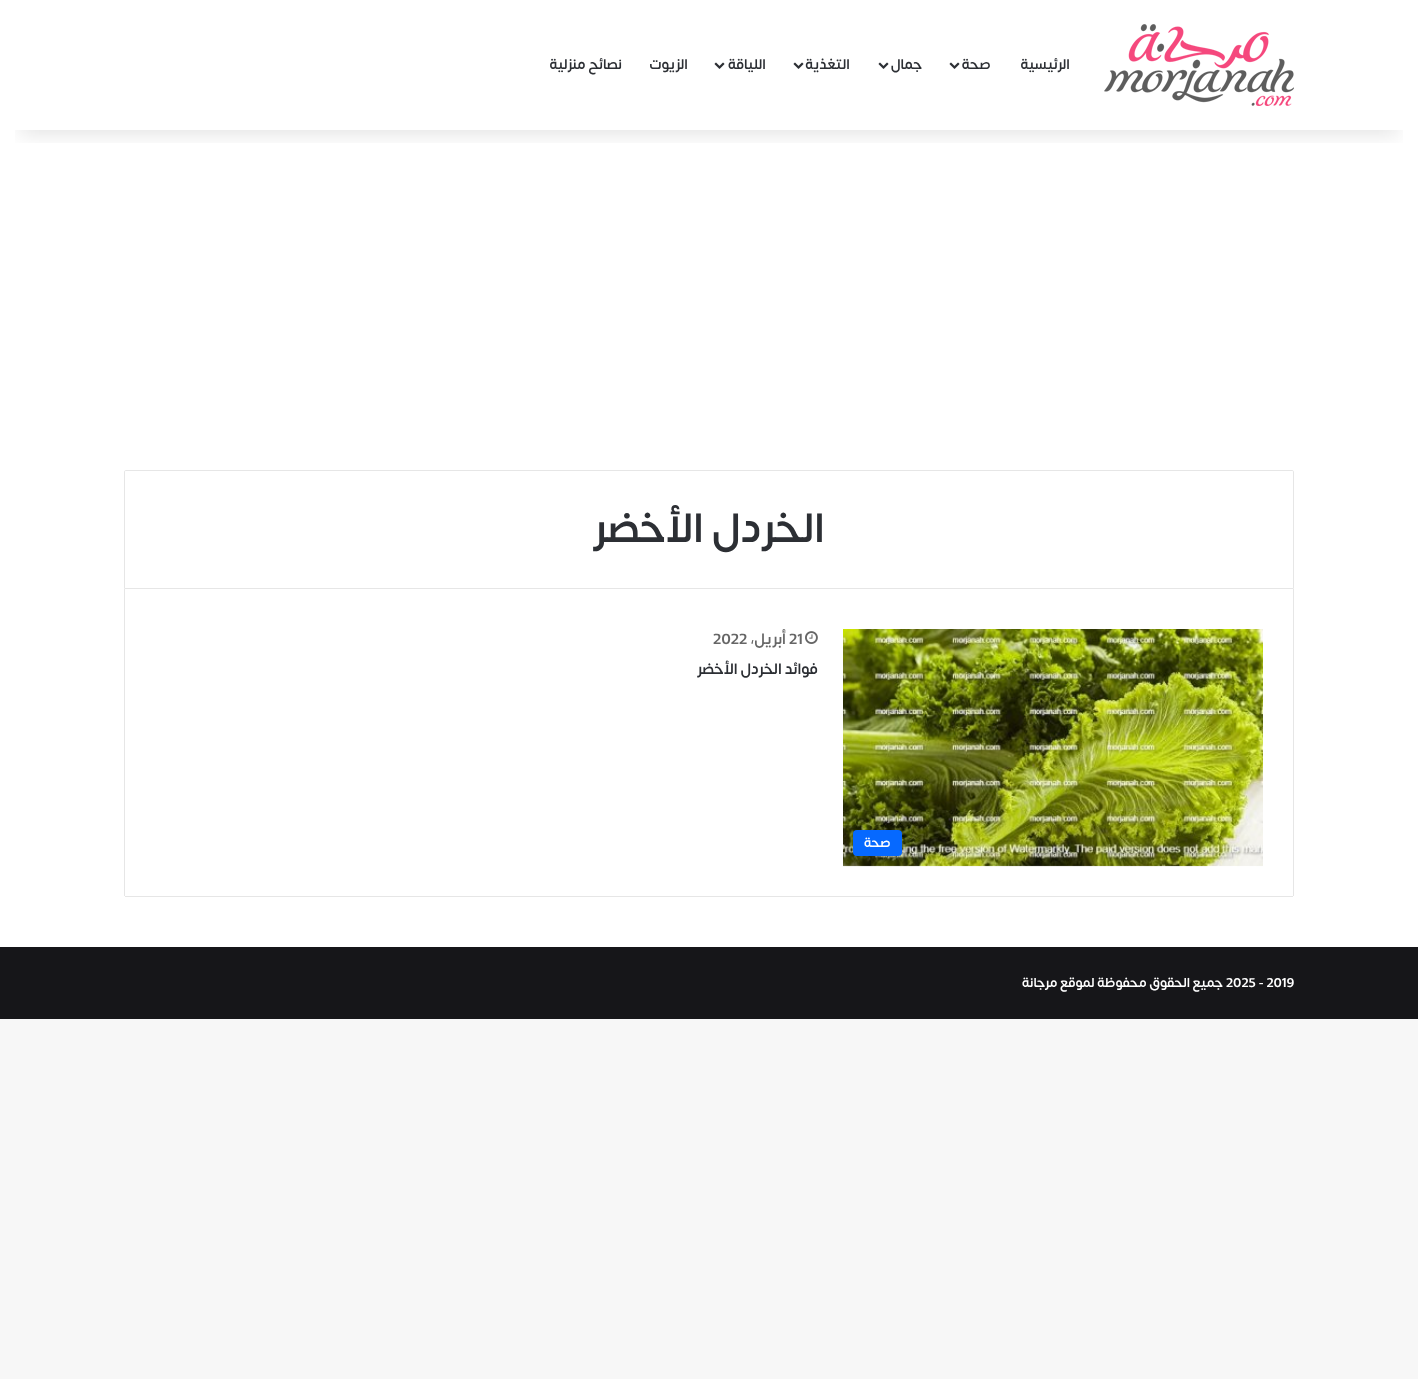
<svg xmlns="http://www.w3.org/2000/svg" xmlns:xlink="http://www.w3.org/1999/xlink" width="1418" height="1379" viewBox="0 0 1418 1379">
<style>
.cls-1{font:600 14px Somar;direction:rtl;fill:#2c2f34}
.cls-2{font:600 41px Somar;direction:rtl;fill:#2c2f34}
.cls-3{font:600 15px Somar;fill:#666666}
.cls-4{font:600 15px Somar;direction:rtl;fill:#666666}
.cls-5{font:600 15px Somar;direction:rtl;fill:#2c2f34}
.cls-6{font:600 13px Somar;direction:rtl;fill:#ffffff}
.cls-7{font:600 13px Somar;fill:#ffffff}
</style>
<defs>
<clipPath id="clip1"><rect x="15" y="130" width="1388" height="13"/></clipPath>
</defs>
<rect width="100%" height="100%" fill="#f7f7f7"/>
<rect fill="#ffffff" x="0" y="0" width="1418" height="947"/>
<g clip-path="url(#clip1)">
<rect fill="#000000" fill-opacity="0.1" filter="blur(10px)" x="20" y="45" width="1378" height="90"/>
</g>
<image xlink:href="image0.png" x="1104" y="24" width="190" height="82"/>
<image xlink:href="image1.png" x="949" y="62" width="11" height="7"/>
<image xlink:href="image1.png" x="878" y="62" width="11" height="7"/>
<image xlink:href="image1.png" x="793" y="62" width="11" height="7"/>
<image xlink:href="image1.png" x="714" y="62" width="11" height="7"/>
<path fill="none" stroke="#e6e6e6" d="M126 470.5H1292C1293 470.5 1293.5 471 1293.5 472V588.5H124.5V472C124.5 471 125 470.5 126 470.5Z"/>
<rect fill="#e6e6e6" x="1293" y="589" width="1" height="307"/>
<rect fill="#e6e6e6" x="125" y="896" width="1168" height="1"/>
<rect fill="#e6e6e6" x="124" y="589" width="1" height="307"/>
<image xlink:href="image2.png" x="805" y="631" width="13" height="13"/>
<image xlink:href="image3.png" x="843" y="629" width="420" height="238"/>
<rect fill="#0669ff" x="853" y="830" width="49" height="26" rx="4"/>
<rect fill="#161619" x="0" y="947" width="1418" height="72"/>
<text class="cls-1" x="1070" y="69">الرئيسية</text>
<text class="cls-1" x="991" y="69">صحة</text>
<text class="cls-1" x="922" y="69">جمال</text>
<text class="cls-1" x="850" y="69">التغذية</text>
<text class="cls-1" x="766" y="69">اللياقة</text>
<text class="cls-1" x="688" y="69">الزيوت</text>
<text class="cls-1" x="622" y="69">نصائح منزلية</text>
<text class="cls-2" x="825" y="542">الخردل الأخضر</text>
<text class="cls-3" x="789" y="644">21</text>
<text class="cls-4" x="786" y="644">أبريل،</text>
<text class="cls-3" x="713" y="644">2022</text>
<text class="cls-5" x="818" y="674">فوائد الخردل الأخضر</text>
<text class="cls-6" x="891" y="847">صحة</text>
<text class="cls-7" x="1226" y="987">2025 - 2019</text>
<text class="cls-6" x="1223" y="987">جميع الحقوق محفوظة لموقع مرجانة</text>
</svg>
